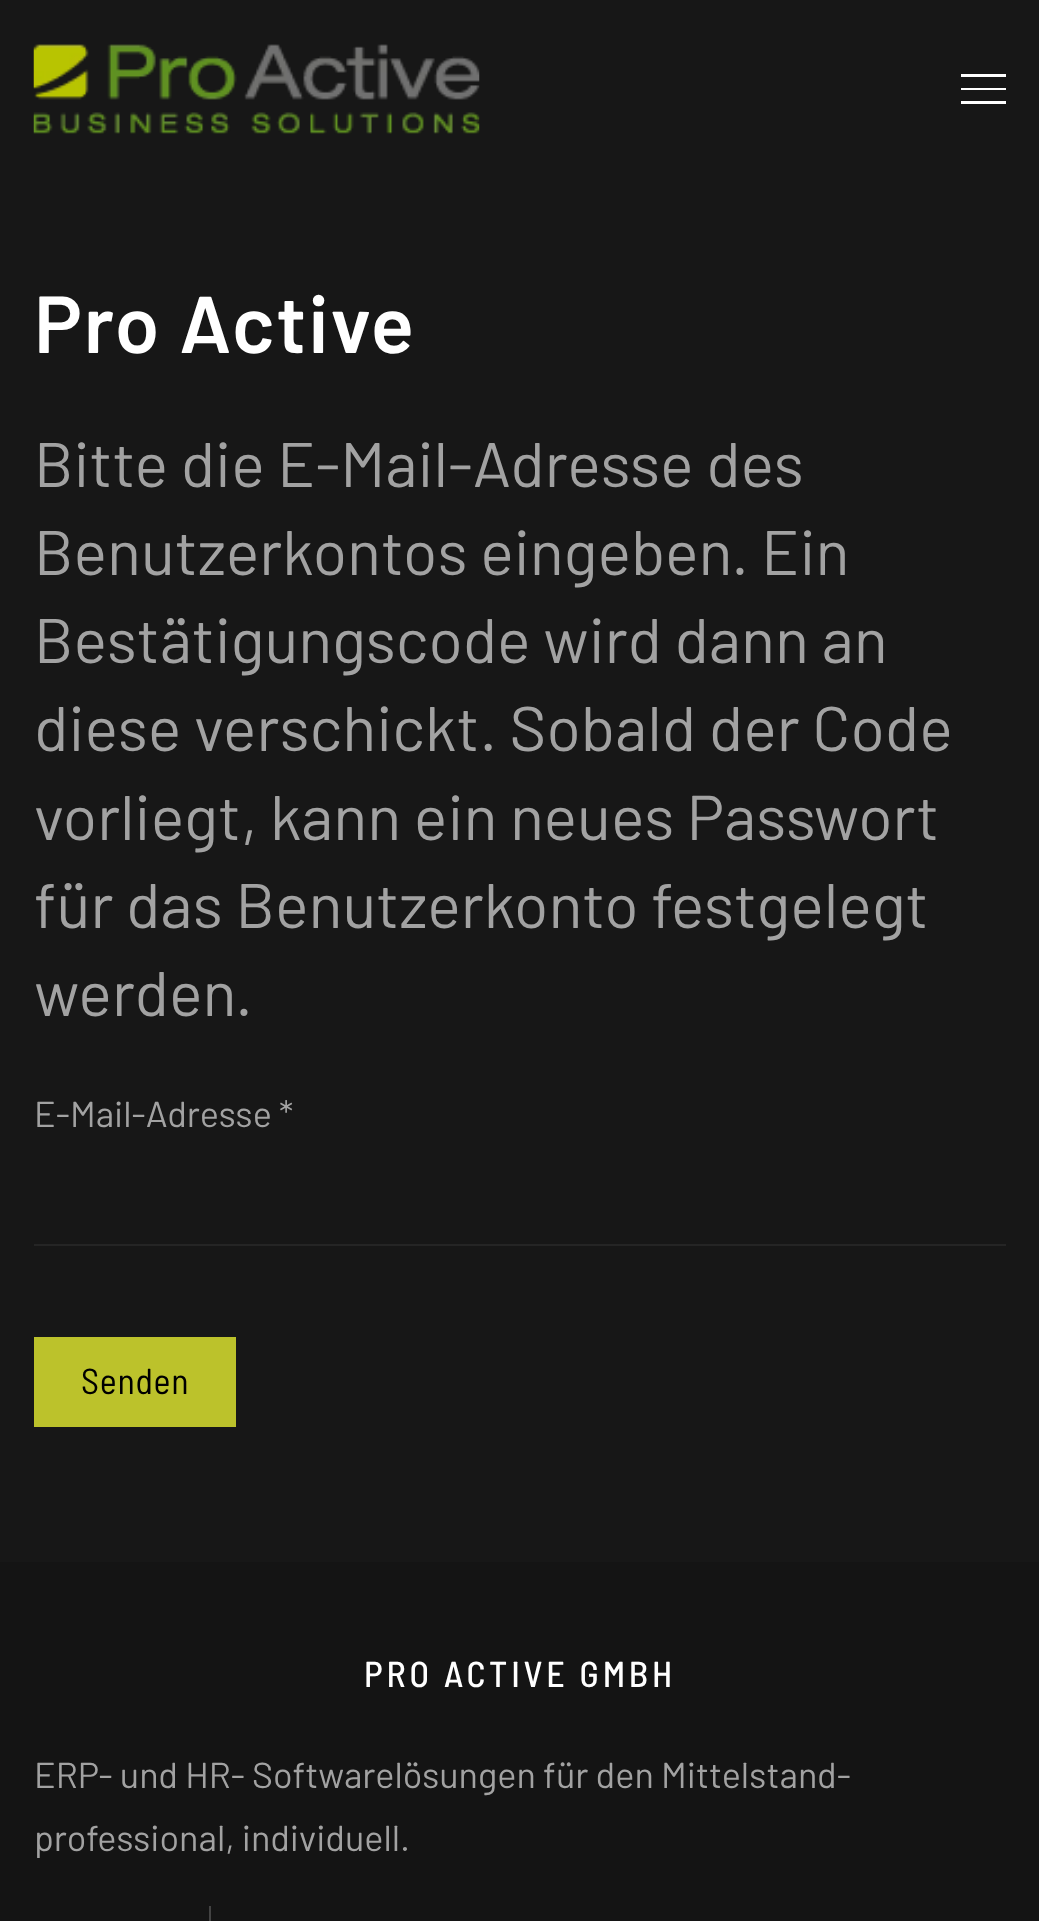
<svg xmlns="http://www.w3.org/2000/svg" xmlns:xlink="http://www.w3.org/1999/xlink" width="1039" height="1921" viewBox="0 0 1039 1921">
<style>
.cls-1{font:600 80.5px Barlow;letter-spacing:1.75px;fill:#ffffff}
.cls-2{font:63px Barlow;fill:#a2a2a2}
.cls-3{font:36px Barlow;fill:#a2a2a2}
.cls-4{font:36px Barlow Semi Condensed;letter-spacing:0.75px;fill:#000000}
.cls-5{font:500 36px Barlow Semi Condensed;letter-spacing:3.8px;fill:#ffffff}
</style>
<rect width="100%" height="100%" fill="#171717"/>
<image xlink:href="image0.png" x="33" y="44" width="447" height="90"/>
<rect fill="#ffffff" x="961" y="74" width="45" height="3"/>
<rect fill="#ffffff" x="961" y="88" width="45" height="2"/>
<rect fill="#ffffff" x="961" y="101" width="45" height="3"/>
<rect fill="#252525" x="34" y="1244" width="972" height="2"/>
<rect fill="#bcc22b" x="34" y="1337" width="202" height="90"/>
<rect fill="#141414" x="0" y="1562" width="1039" height="359"/>
<rect fill="#434343" x="209" y="1906" width="2" height="15"/>
<text class="cls-1" x="34" y="353">Pro Active</text>
<text class="cls-2"><tspan x="34" y="487">Bitte die E-Mail-Adresse des</tspan><tspan x="34" y="575">Benutzerkontos eingeben. Ein</tspan><tspan x="34" y="663">Bestätigungscode wird dann an</tspan><tspan x="34" y="751">diese verschickt. Sobald der Code</tspan><tspan x="34" y="840">vorliegt, kann ein neues Passwort</tspan><tspan x="34" y="928">für das Benutzerkonto festgelegt</tspan><tspan x="34" y="1016">werden.</tspan></text>
<text class="cls-3" x="34" y="1127">E-Mail-Adresse *</text>
<text class="cls-4" x="81" y="1394">Senden</text>
<text class="cls-5" x="364" y="1687">PRO ACTIVE GMBH</text>
<text class="cls-3"><tspan x="34" y="1788">ERP- und HR- Softwarelösungen für den Mittelstand-</tspan><tspan x="34" y="1851">professional, individuell.</tspan></text>
</svg>
